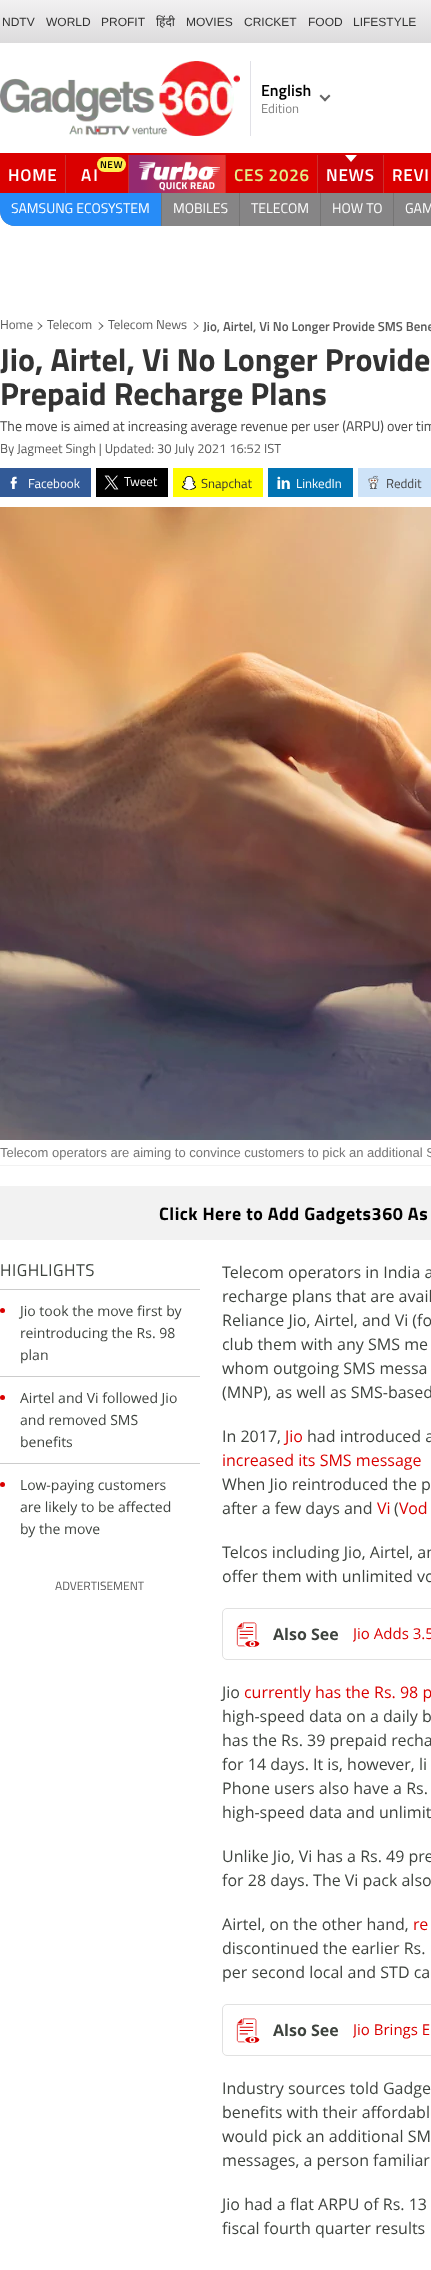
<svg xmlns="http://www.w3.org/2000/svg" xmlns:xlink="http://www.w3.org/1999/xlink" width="431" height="2270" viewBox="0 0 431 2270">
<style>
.cls-1{font:12px Liberation Sans;fill:#333333}
.cls-2{font:12px Noto Sans;fill:#333333}
.cls-3{font:600 16px Titillium Web;fill:#000000}
.cls-4{font:13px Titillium;fill:#808080}
.cls-5{font:600 17px Titillium Web;letter-spacing:0.75px;fill:#ffffff}
.cls-6{font:600 10px Titillium Web;letter-spacing:0.5px;fill:#000000}
.cls-7{font:600 17px Titillium Web;letter-spacing:2px;fill:#ffffff}
.cls-8{font:600 17px Titillium Web;letter-spacing:0.75px;fill:#e2ef88}
.cls-9{font:bold 10px Titillium;letter-spacing:0.25px;fill:#ffffff}
.cls-10{font:14px Titillium;fill:#ffffff}
.cls-11{font:13px Titillium;fill:#595959}
.cls-12{font:600 13px Titillium Web;fill:#595959}
.cls-13{font:bold 32px Titillium;fill:#333333}
.cls-14{font:14px Titillium;fill:#454545}
.cls-15{font:13px Titillium;fill:#ffffff}
.cls-16{font:13px Titillium;fill:#333333}
.cls-17{font:13px Titillium;fill:#454545}
.cls-18{font:13px Liberation Sans;fill:#757575}
.cls-19{font:bold 18px Titillium;letter-spacing:0.5px;fill:#000000}
.cls-20{font:17px Titillium;letter-spacing:0.5px;fill:#3e433e}
.cls-21{font:14px Open Sans;fill:#3e433e}
.cls-22{font:12px Titillium;fill:#595959}
.cls-23{font:16px Open Sans;fill:#3e433e}
.cls-24{font:16px Open Sans;fill:#da0000}
.cls-25{font:bold 16px Open Sans;fill:#3e433e}
.cls-26{font:15px Open Sans;fill:#da0000}
</style>
<defs>
<linearGradient id="g1" gradientUnits="userSpaceOnUse" x1="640" y1="0" x2="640" y2="43"><stop offset="0" stop-color="#f2f1f2"/><stop offset="1" stop-color="#dcdbdc"/></linearGradient>
<linearGradient id="g2" gradientUnits="userSpaceOnUse" x1="129" y1="175" x2="226" y2="175"><stop offset="0.14" stop-color="#942a70"/><stop offset="1" stop-color="#ed3833"/></linearGradient>
<clipPath id="clip1"><rect x="353" y="1621" width="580" height="24"/></clipPath>
<clipPath id="clip2"><rect x="353" y="2017" width="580" height="24"/></clipPath>
</defs>
<rect width="100%" height="100%" fill="#ffffff"/>
<rect fill="url(#g1)" x="0" y="0" width="431" height="43"/>
<rect fill="#e1e1e7" x="250" y="61" width="1" height="75"/>
<image xlink:href="image0.png" x="0" y="61" width="240" height="75"/>
<path fill="#666666" d="M330.5 96L325 101.5L323.5 100L329 94.5Z"/>
<path fill="#666666" d="M326.5 100L325 101.5L319.5 96L321 94.5Z"/>
<rect fill="#da0000" x="0" y="153" width="431" height="40"/>
<rect fill="#cb0107" x="318" y="155" width="65" height="38"/>
<rect fill="#cc2f2c" x="65" y="155" width="1" height="40"/>
<rect fill="#cc2f2c" x="128" y="155" width="1" height="40"/>
<rect fill="#ffed4f" x="97" y="157" width="29" height="15" rx="7.5"/>
<rect fill="#cc2f2c" x="317" y="155" width="1" height="40"/>
<rect fill="#cc2f2c" x="383" y="155" width="1" height="40"/>
<path fill="#ffffff" d="M345 155H357L351 162Z"/>
<rect fill="url(#g2)" x="129" y="155" width="96" height="38"/>
<rect fill="#cc2f2c" x="225" y="155" width="1" height="40"/>
<image xlink:href="image1.png" x="138" y="161" width="82" height="20"/>
<path fill="#868586" d="M0 193H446V211C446 219.5 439.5 226 431 226H15C6.5 226 0 219.5 0 211Z"/>
<path fill="#278cf7" d="M0 193H162V226H15C6.5 226 0 219.5 0 211Z"/>
<rect fill="#757474" x="161" y="193" width="1" height="33"/>
<rect fill="#757474" x="239" y="193" width="1" height="33"/>
<rect fill="#757474" x="320" y="193" width="1" height="33"/>
<rect fill="#757474" x="393" y="193" width="1" height="33"/>
<path fill="#545454" d="M38 322L42.5 326L41.5 326.5L37.5 322.5Z"/>
<path fill="#545454" d="M41.5 325.5L42.5 326L38 330L37.5 329.5Z"/>
<path fill="#545454" d="M99 322L103.5 326L102.5 326.5L98.5 322.5Z"/>
<path fill="#545454" d="M102.5 325.5L103.5 326L99 330L98.5 329.5Z"/>
<path fill="#545454" d="M194 322L198.5 326L198 326.5L193.5 322.5Z"/>
<path fill="#545454" d="M198 325.5L198.5 326L194 330L193.5 329.5Z"/>
<rect fill="#325a97" x="0" y="468" width="91" height="29"/>
<image xlink:href="image2.png" x="10" y="476" width="7" height="13"/>
<rect fill="#000000" x="96" y="468" width="72" height="29"/>
<image xlink:href="image3.png" x="104" y="475" width="15" height="15"/>
<rect fill="#fffc00" x="173" y="468" width="90" height="29"/>
<image xlink:href="image4.png" x="181" y="476" width="15" height="14"/>
<rect fill="#0273b2" x="268" y="468" width="85" height="29"/>
<image xlink:href="image5.png" x="277" y="476" width="13" height="13"/>
<rect fill="#cee3f8" x="358" y="468" width="73" height="29"/>
<image xlink:href="image6.png" x="368" y="475" width="11" height="14"/>
<image xlink:href="image7.png" x="0" y="507" width="431" height="633"/>
<rect fill="#f2f2f2" x="0" y="1165" width="431" height="1"/>
<rect fill="#f2f2f2" x="0" y="1186" width="431" height="54"/>
<rect fill="#cccccc" x="0" y="1289" width="200" height="1"/>
<rect fill="#cccccc" x="0" y="1376" width="200" height="1"/>
<circle fill="#da0000" cx="2.5" cy="1310.5" r="2.5"/>
<rect fill="#cccccc" x="0" y="1463" width="200" height="1"/>
<circle fill="#da0000" cx="2.5" cy="1397.5" r="2.5"/>
<circle fill="#da0000" cx="2.5" cy="1484.5" r="2.5"/>
<rect fill="none" stroke="#e1e1e1" x="222.5" y="1608.5" width="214" height="51" rx="4.5"/>
<image xlink:href="image8.png" x="236" y="1622" width="24" height="25"/>
<rect fill="none" stroke="#e1e1e1" x="222.5" y="2004.5" width="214" height="51" rx="4.5"/>
<image xlink:href="image9.png" x="236" y="2018" width="24" height="25"/>
<text class="cls-1" x="2" y="26">NDTV</text>
<text class="cls-1" x="46" y="26">WORLD</text>
<text class="cls-1" x="101" y="26">PROFIT</text>
<text class="cls-2" x="156" y="26">हिंदी</text>
<text class="cls-1" x="186" y="26">MOVIES</text>
<text class="cls-1" x="244" y="26">CRICKET</text>
<text class="cls-1" x="308" y="26">FOOD</text>
<text class="cls-1" x="353" y="26">LIFESTYLE</text>
<text class="cls-3" x="261" y="96">English</text>
<text class="cls-4" x="261" y="113">Edition</text>
<text class="cls-5" x="8" y="181">HOME</text>
<text class="cls-6" x="100" y="168">NEW</text>
<text class="cls-7" x="81" y="181">AI</text>
<text class="cls-8" x="234" y="181">CES 2026</text>
<text class="cls-5" x="326" y="181">NEWS</text>
<text class="cls-5" x="392" y="181">REVI</text>
<text class="cls-9" x="159" y="189">QUICK READ</text>
<text class="cls-10" x="11" y="213">SAMSUNG ECOSYSTEM</text>
<text class="cls-10" x="173" y="213">MOBILES</text>
<text class="cls-10" x="251" y="213">TELECOM</text>
<text class="cls-10" x="332" y="213">HOW TO</text>
<text class="cls-10" x="405" y="213">GAM</text>
<text class="cls-11" x="0" y="329">Home</text>
<text class="cls-11" x="47" y="329">Telecom</text>
<text class="cls-11" x="108" y="329">Telecom News</text>
<text class="cls-12" x="203" y="331">Jio, Airtel, Vi No Longer Provide SMS Bene</text>
<text class="cls-13"><tspan x="0" y="371">Jio, Airtel, Vi No Longer Provide</tspan><tspan x="0" y="405">Prepaid Recharge Plans</tspan></text>
<text class="cls-14" x="0" y="431">The move is aimed at increasing average revenue per user (ARPU) over tim</text>
<text class="cls-11" x="0" y="453">By Jagmeet Singh | Updated: 30 July 2021 16:52 IST</text>
<text class="cls-15" x="28" y="488">Facebook</text>
<text class="cls-15" x="124" y="486">Tweet</text>
<text class="cls-16" x="201" y="488">Snapchat</text>
<text class="cls-15" x="296" y="488">LinkedIn</text>
<text class="cls-17" x="386" y="488">Reddit</text>
<text class="cls-18" x="0" y="1157">Telecom operators are aiming to convince customers to pick an additional S</text>
<text class="cls-19" x="159" y="1220">Click Here to Add Gadgets360 As</text>
<text class="cls-20" x="0" y="1276">HIGHLIGHTS</text>
<text class="cls-21"><tspan x="20" y="1316">Jio took the move first by</tspan><tspan x="20" y="1338">reintroducing the Rs. 98</tspan><tspan x="20" y="1360">plan</tspan></text>
<text class="cls-21"><tspan x="20" y="1403">Airtel and Vi followed Jio</tspan><tspan x="20" y="1425">and removed SMS</tspan><tspan x="20" y="1447">benefits</tspan></text>
<text class="cls-21"><tspan x="20" y="1490">Low-paying customers</tspan><tspan x="20" y="1512">are likely to be affected</tspan><tspan x="20" y="1534">by the move</tspan></text>
<text class="cls-22" x="55" y="1590">ADVERTISEMENT</text>
<text class="cls-23"><tspan x="222" y="1278">Telecom operators in India a</tspan><tspan x="222" y="1302">recharge plans that are avail</tspan><tspan x="222" y="1326">Reliance Jio, Airtel, and Vi (fo</tspan><tspan x="222" y="1350">club them with any SMS me</tspan><tspan x="222" y="1374">whom outgoing SMS messa</tspan><tspan x="222" y="1398">(MNP), as well as SMS-based</tspan></text>
<text class="cls-23" x="222" y="1442">In 2017,</text>
<text class="cls-24" x="285" y="1442">Jio</text>
<text class="cls-23" x="307" y="1442">had introduced a</text>
<text class="cls-24" x="222" y="1466">increased its SMS message</text>
<text class="cls-23"><tspan x="222" y="1490">When Jio reintroduced the p</tspan><tspan x="222" y="1514">after a few days and</tspan></text>
<text class="cls-24" x="377" y="1514">Vi</text>
<text class="cls-23" x="394" y="1514">(</text>
<text class="cls-24" x="399" y="1514">Vod</text>
<text class="cls-23"><tspan x="222" y="1558">Telcos including Jio, Airtel, an</tspan><tspan x="222" y="1582">offer them with unlimited vo</tspan></text>
<text class="cls-25" x="273" y="1640">Also See</text>
<g clip-path="url(#clip1)">
<text class="cls-26" x="353" y="1639">Jio Adds 3.5</text>
</g>
<text class="cls-23" x="222" y="1698">Jio</text>
<text class="cls-24" x="244" y="1698">currently has the Rs. 98 p</text>
<text class="cls-23"><tspan x="222" y="1722">high-speed data on a daily b</tspan><tspan x="222" y="1746">has the Rs. 39 prepaid recha</tspan><tspan x="222" y="1770">for 14 days. It is, however, li</tspan><tspan x="222" y="1794">Phone users also have a Rs.</tspan><tspan x="222" y="1818">high-speed data and unlimit</tspan></text>
<text class="cls-23"><tspan x="222" y="1862">Unlike Jio, Vi has a Rs. 49 pre</tspan><tspan x="222" y="1886">for 28 days. The Vi pack also</tspan></text>
<text class="cls-23" x="222" y="1930">Airtel, on the other hand,</text>
<text class="cls-24" x="413" y="1930">re</text>
<text class="cls-23"><tspan x="222" y="1954">discontinued the earlier Rs.</tspan><tspan x="222" y="1978">per second local and STD ca</tspan></text>
<text class="cls-25" x="273" y="2036">Also See</text>
<g clip-path="url(#clip2)">
<text class="cls-26" x="353" y="2035">Jio Brings E</text>
</g>
<text class="cls-23"><tspan x="222" y="2094">Industry sources told Gadge</tspan><tspan x="222" y="2118">benefits with their affordabl</tspan><tspan x="222" y="2142">would pick an additional SM</tspan><tspan x="222" y="2166">messages, a person familiar</tspan></text>
<text class="cls-23"><tspan x="222" y="2210">Jio had a flat ARPU of Rs. 13</tspan><tspan x="222" y="2234">fiscal fourth quarter results</tspan></text>
</svg>
